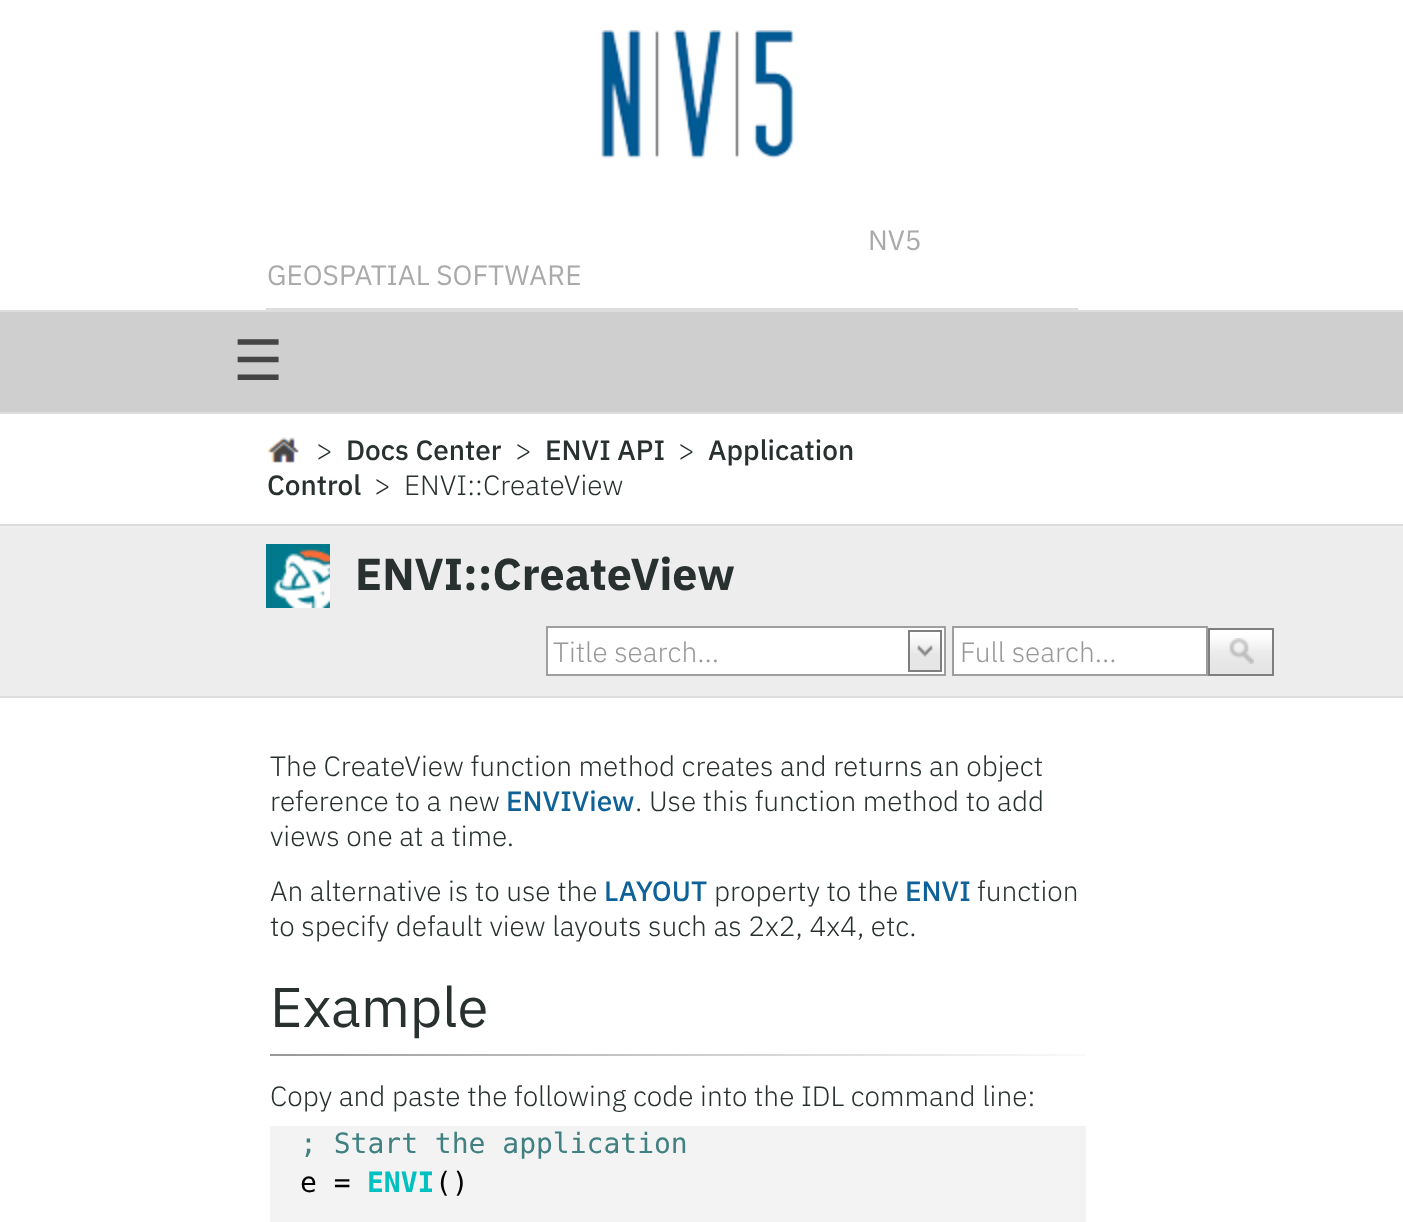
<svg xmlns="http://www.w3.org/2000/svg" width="1403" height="1222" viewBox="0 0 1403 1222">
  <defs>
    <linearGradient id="g1" gradientUnits="userSpaceOnUse" x1="270" y1="1055" x2="1086" y2="1055"><stop offset="0" stop-color="rgb(153,153,153)"/><stop offset="0.5" stop-color="rgb(204,204,204)"/><stop offset="1" stop-color="rgb(250,250,250)"/></linearGradient>
  </defs>
  <rect width="100%" height="100%" fill="rgb(255,255,255)"/>
  <image x="601" y="30" width="194" height="129" href="pic1.png"/>
  <g font-family="IBM Plex Sans" font-size="28" fill="rgb(170,170,170)">
    <text x="868" y="250">NV5</text>
    <text x="267" y="285">GEOSPATIAL SOFTWARE</text>
  </g>
  <rect x="266" y="308" width="812" height="2" fill="rgb(221,221,221)"/>
  <rect x="0" y="310" width="1403" height="2" fill="rgb(221,221,221)"/>
  <rect x="0" y="524" width="1403" height="2" fill="rgb(221,221,221)"/>
  <rect x="0" y="412" width="1403" height="2" fill="rgb(221,221,221)"/>
  <rect x="0" y="312" width="1403" height="100" fill="rgb(207,207,207)"/>
  <text x="233" y="380" font-family="DejaVu Sans" font-size="56" fill="rgb(68,68,68)">☰</text>
  <image x="267" y="437" width="32" height="26" href="pic2.png"/>
  <text x="316" y="460" font-family="IBM Plex Sans" font-size="28" font-weight="300" fill="rgb(40,48,48)">&gt;</text>
  <text x="346" y="460" font-family="IBM Plex Sans" font-size="28" font-weight="500" fill="rgb(40,48,48)">Docs Center</text>
  <text x="515" y="460" font-family="IBM Plex Sans" font-size="28" font-weight="300" fill="rgb(40,48,48)">&gt;</text>
  <text x="545" y="460" font-family="IBM Plex Sans" font-size="28" font-weight="500" fill="rgb(40,48,48)">ENVI API</text>
  <text x="678" y="460" font-family="IBM Plex Sans" font-size="28" font-weight="300" fill="rgb(40,48,48)">&gt;</text>
  <g font-family="IBM Plex Sans" font-size="28" font-weight="500" fill="rgb(40,48,48)">
    <text x="708" y="460">Application</text>
    <text x="267" y="495">Control</text>
  </g>
  <text x="374" y="495" font-family="IBM Plex Sans" font-size="28" font-weight="300" fill="rgb(40,48,48)" xml:space="preserve">&gt;  ENVI::CreateView</text>
  <rect x="0" y="526" width="1403" height="170" fill="rgb(237,237,237)"/>
  <rect x="0" y="696" width="1403" height="2" fill="rgb(221,221,221)"/>
  <image x="266" y="544" width="64" height="64" href="pic3.png"/>
  <text x="355" y="590" font-family="IBM Plex Sans" font-size="44.75" font-weight="bold" fill="rgb(40,48,48)">ENVI::CreateView</text>
  <rect x="547" y="627" width="398" height="48" fill="rgb(255,255,255)" stroke="rgb(159,159,159)" stroke-width="2"/>
  <text x="553" y="662" font-family="IBM Plex Sans" font-size="28" font-weight="300" fill="rgb(153,153,153)">Title search...</text>
  <rect x="910" y="653" width="30" height="17" fill="rgb(230,230,230)"/>
  <image x="910" y="632" width="30" height="21" href="pic4.png"/>
  <rect x="909" y="631" width="32" height="40" fill="none" stroke="rgb(127,127,127)" stroke-width="2"/>
  <image x="917" y="645" width="16" height="12" href="pic5.png"/>
  <rect x="953" y="627" width="254" height="48" fill="rgb(255,255,255)" stroke="rgb(159,159,159)" stroke-width="2"/>
  <text x="960" y="662" font-family="IBM Plex Sans" font-size="28" font-weight="300" fill="rgb(153,153,153)">Full search...</text>
  <image x="1210" y="630" width="62" height="44" href="pic6.png"/>
  <rect x="1209" y="629" width="64" height="46" fill="none" stroke="rgb(127,127,127)" stroke-width="2"/>
  <image x="1229" y="638" width="25" height="26" href="pic7.png"/>
  <g font-family="IBM Plex Sans" font-size="28" font-weight="300" fill="rgb(40,48,48)">
    <text>
      <tspan x="270" y="776">The CreateView function method creates and returns an object</tspan>
      <tspan x="270" y="811">reference to a new</tspan>
    </text>
  </g>
  <text x="506" y="811" font-family="IBM Plex Sans" font-size="28" font-weight="500" fill="rgb(15,98,152)">ENVIView</text>
  <g font-family="IBM Plex Sans" font-size="28" font-weight="300" fill="rgb(40,48,48)">
    <text x="635" y="811">. Use this function method to add</text>
    <text>
      <tspan x="270" y="846">views one at a time.</tspan>
      <tspan x="270" y="901">An alternative is to use the</tspan>
    </text>
  </g>
  <text x="604" y="901" font-family="IBM Plex Sans" font-size="28" font-weight="500" fill="rgb(15,98,152)">LAYOUT</text>
  <text x="714" y="901" font-family="IBM Plex Sans" font-size="28" font-weight="300" fill="rgb(40,48,48)">property to the</text>
  <text x="905" y="901" font-family="IBM Plex Sans" font-size="28" font-weight="500" fill="rgb(15,98,152)">ENVI</text>
  <g font-family="IBM Plex Sans" font-size="28" font-weight="300" fill="rgb(40,48,48)">
    <text x="977" y="901">function</text>
    <text x="270" y="936">to specify default view layouts such as 2x2, 4x4, etc.</text>
  </g>
  <text x="270" y="1027" font-family="IBM Plex Sans" font-size="56" fill="rgb(40,48,48)">Example</text>
  <rect x="270" y="1054" width="816" height="2" fill="url(#g1)"/>
  <text x="270" y="1106" font-family="IBM Plex Sans" font-size="28" font-weight="300" fill="rgb(40,48,48)">Copy and paste the following code into the IDL command line:</text>
  <rect x="270" y="1126" width="816" height="96" fill="rgb(243,243,243)"/>
  <text x="300" y="1153" font-family="DejaVu Sans Mono" font-size="28" fill="rgb(64,128,128)">; Start the application</text>
  <text x="300" y="1192" font-family="DejaVu Sans Mono" font-size="28" fill="rgb(0,0,0)">e =</text>
  <text x="367" y="1192" font-family="DejaVu Sans Mono" font-size="28" font-weight="bold" fill="rgb(0,192,192)">ENVI</text>
  <text x="435" y="1192" font-family="DejaVu Sans Mono" font-size="28" fill="rgb(0,0,0)">()</text>
</svg>
